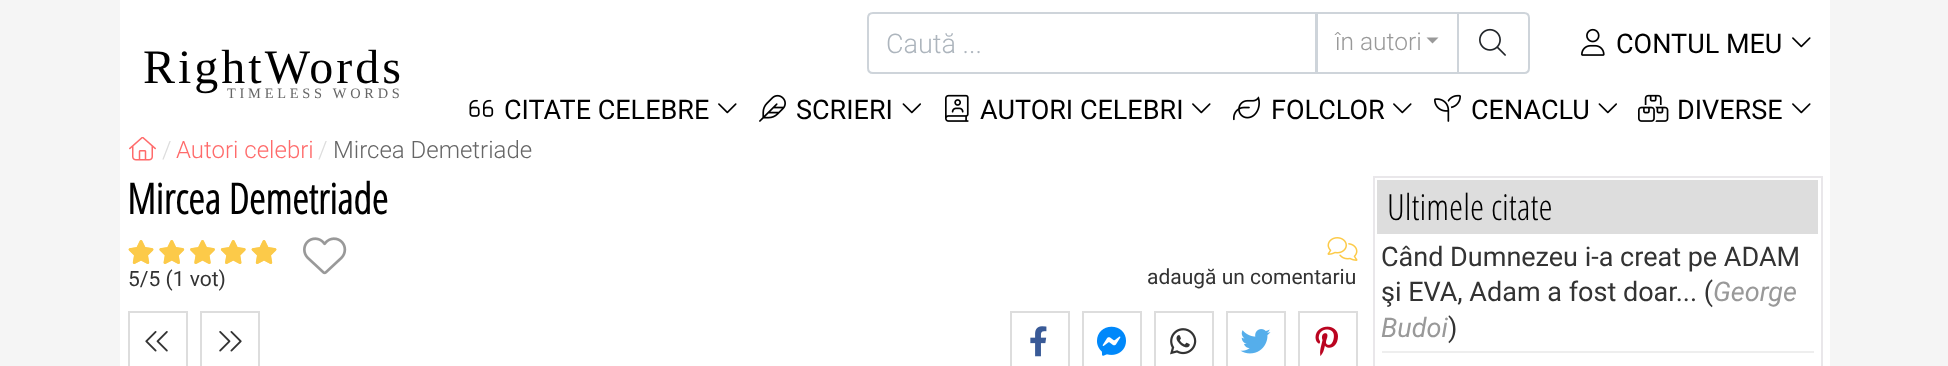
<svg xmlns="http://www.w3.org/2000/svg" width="1948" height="366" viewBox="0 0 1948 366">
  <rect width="100%" height="100%" fill="rgb(245,245,245)"/>
  <rect x="120" y="0" width="1710" height="366" fill="rgb(255,255,255)"/>
  <text x="143" y="83" font-family="Liberation Serif" font-size="48" letter-spacing="3" fill="rgb(0,0,0)">RightWords</text>
  <text x="227" y="98" font-family="Liberation Serif" font-size="14.4" letter-spacing="3.75" fill="rgb(102,102,102)">TIMELESS WORDS</text>
  <path d="M873 13H1316V73H873C870 73 868 71 868 68V18C868 15 870 13 873 13Z" fill="none" stroke="rgb(206,212,218)" stroke-width="2"/>
  <text x="886" y="53" font-family="Roboto" font-size="27" font-weight="300" fill="rgb(173,181,189)">Caută ...</text>
  <rect x="1316" y="12" width="141" height="2" fill="rgb(206,212,218)"/>
  <rect x="1316" y="72" width="141" height="2" fill="rgb(206,212,218)"/>
  <rect x="1317" y="12" width="1" height="62" fill="rgb(206,212,218)"/>
  <text x="1335" y="50" font-family="Roboto" font-size="24.5" font-weight="300" fill="rgb(153,153,153)">în autori</text>
  <path d="M1426.5 37.5H1438.5L1432.5 43.5Z" fill="rgb(153,153,153)"/>
  <path d="M1458 13H1524C1527 13 1529 15 1529 18V68C1529 71 1527 73 1524 73H1458Z" fill="none" stroke="rgb(206,212,218)" stroke-width="2"/>
  <image x="1479" y="28" width="27" height="28" href="pic1.png"/>
  <image x="1581" y="28" width="24" height="28" href="pic2.png"/>
  <text x="1616" y="53" font-family="Roboto" font-size="27" fill="rgb(0,0,0)">CONTUL MEU</text>
  <image x="1792" y="37" width="19" height="11" href="pic3.png"/>
  <image x="469" y="99" width="25" height="18" href="pic4.png"/>
  <text x="504" y="119" font-family="Roboto" font-size="27" fill="rgb(0,0,0)">CITATE CELEBRE</text>
  <image x="718" y="103" width="19" height="11" href="pic3.png"/>
  <image x="759" y="94" width="27" height="28" href="pic5.png"/>
  <text x="796" y="119" font-family="Roboto" font-size="27" fill="rgb(0,0,0)">SCRIERI</text>
  <image x="902" y="103" width="19" height="11" href="pic6.png"/>
  <image x="945" y="94" width="24" height="28" href="pic7.png"/>
  <text x="980" y="119" font-family="Roboto" font-size="27" fill="rgb(0,0,0)">AUTORI CELEBRI</text>
  <image x="1192" y="103" width="19" height="11" href="pic3.png"/>
  <image x="1233" y="96" width="27" height="25" href="pic8.png"/>
  <text x="1271" y="119" font-family="Roboto" font-size="27" fill="rgb(0,0,0)">FOLCLOR</text>
  <image x="1393" y="103" width="19" height="11" href="pic3.png"/>
  <image x="1434" y="94" width="27" height="28" href="pic9.png"/>
  <text x="1471" y="119" font-family="Roboto" font-size="27" fill="rgb(0,0,0)">CENACLU</text>
  <image x="1598" y="103" width="19" height="11" href="pic6.png"/>
  <image x="1638" y="94" width="31" height="28" href="pic10.png"/>
  <text x="1677" y="119" font-family="Roboto" font-size="27" fill="rgb(0,0,0)">DIVERSE</text>
  <image x="1792" y="103" width="19" height="11" href="pic3.png"/>
  <image x="129" y="137" width="27" height="24" href="pic11.png"/>
  <text x="162" y="158" font-family="Roboto" font-size="24" font-weight="300" fill="rgb(221,221,221)">/</text>
  <text x="176" y="158" font-family="Roboto" font-size="24" font-weight="300" fill="rgb(255,107,107)">Autori celebri</text>
  <text x="318" y="158" font-family="Roboto" font-size="24" font-weight="300" fill="rgb(221,221,221)">/</text>
  <text x="333" y="158" font-family="Roboto" font-size="24" font-weight="300" fill="rgb(102,102,102)">Mircea Demetriade</text>
  <text x="127" y="214" font-family="Open Sans Condensed" font-size="42" font-weight="bold" fill="rgb(0,0,0)">Mircea Demetriade</text>
  <image x="303" y="237" width="44" height="38" href="pic12.png"/>
  <image x="128" y="240" width="149" height="24" href="pic13.png"/>
  <image x="128" y="240" width="149" height="24" href="pic14.png"/>
  <text x="128" y="286" font-family="Roboto" font-size="21" fill="rgb(51,51,51)">5/5 (1 vot)</text>
  <image x="1327" y="237" width="31" height="24" href="pic15.png"/>
  <text x="1147" y="284" font-family="Roboto" font-size="21" fill="rgb(51,51,51)">adaugă un comentariu</text>
  <rect x="129" y="312" width="58" height="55" fill="none" stroke="rgb(221,221,221)" stroke-width="2"/>
  <image x="145" y="331" width="23" height="21" href="pic16.png"/>
  <rect x="201" y="312" width="58" height="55" fill="none" stroke="rgb(221,221,221)" stroke-width="2"/>
  <image x="219" y="331" width="23" height="21" href="pic17.png"/>
  <rect x="1011" y="312" width="58" height="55" fill="none" stroke="rgb(221,221,221)" stroke-width="2"/>
  <image x="1030" y="326" width="17" height="31" href="pic18.png"/>
  <rect x="1083" y="312" width="58" height="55" fill="none" stroke="rgb(221,221,221)" stroke-width="2"/>
  <image x="1097" y="326" width="29" height="30" href="pic19.png"/>
  <rect x="1155" y="312" width="58" height="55" fill="none" stroke="rgb(221,221,221)" stroke-width="2"/>
  <image x="1170" y="328" width="27" height="27" href="pic20.png"/>
  <rect x="1227" y="312" width="58" height="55" fill="none" stroke="rgb(221,221,221)" stroke-width="2"/>
  <image x="1240" y="329" width="31" height="25" href="pic21.png"/>
  <rect x="1299" y="312" width="58" height="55" fill="none" stroke="rgb(221,221,221)" stroke-width="2"/>
  <image x="1315" y="326" width="23" height="30" href="pic22.png"/>
  <rect x="1374" y="177" width="448" height="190" fill="none" stroke="rgb(233,231,234)" stroke-width="2"/>
  <rect x="1377" y="180" width="441" height="54" fill="rgb(221,221,221)"/>
  <text x="1387" y="220" font-family="Open Sans Condensed" font-size="36" font-weight="300" fill="rgb(0,0,0)">Ultimele citate</text>
  <rect x="1382" y="351" width="432" height="2" fill="rgb(238,238,238)"/>
  <g font-family="Roboto" font-size="27" fill="rgb(51,51,51)">
    <text>
      <tspan x="1381" y="266">Când Dumnezeu i-a creat pe ADAM</tspan>
      <tspan x="1381" y="301">şi EVA, Adam a fost doar... (</tspan>
    </text>
  </g>
  <g font-family="Roboto" font-size="27" font-style="italic" fill="rgb(153,153,153)">
    <text x="1713" y="301">George</text>
    <text x="1381" y="337">Budoi</text>
  </g>
  <text x="1448" y="337" font-family="Roboto" font-size="27" fill="rgb(51,51,51)">)</text>
</svg>
